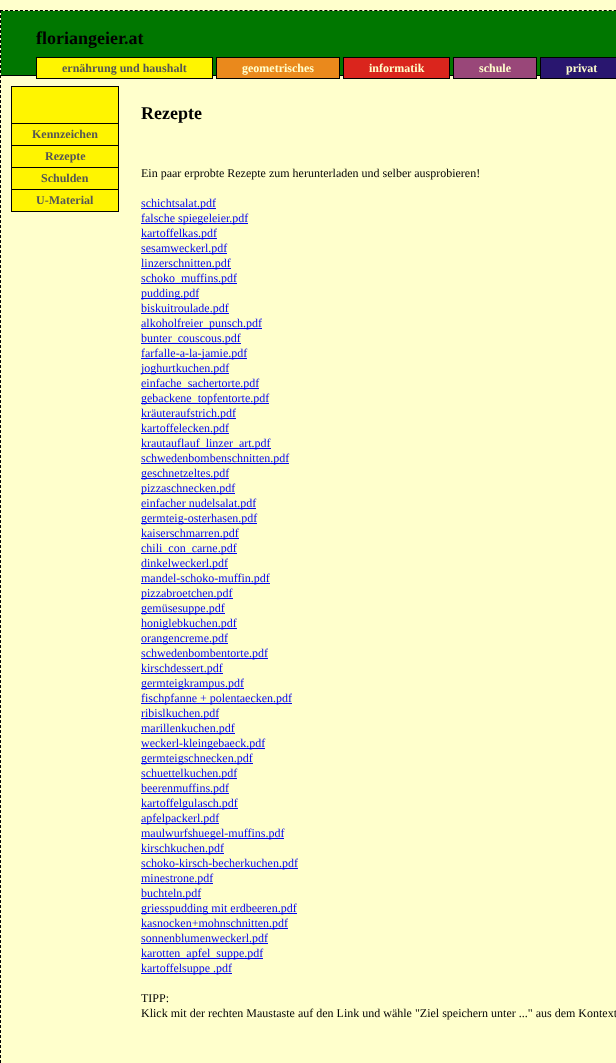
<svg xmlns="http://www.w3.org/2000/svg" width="616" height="1063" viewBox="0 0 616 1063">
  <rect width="100%" height="100%" fill="rgb(255,255,204)"/>
  <path d="M0 10.5H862" fill="none" stroke="rgb(0,0,0)" stroke-dasharray="3 1.99"/>
  <path d="M.5 10V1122" fill="none" stroke="rgb(0,0,0)" stroke-dasharray="3 2"/>
  <rect x="1" y="11" width="615" height="64" fill="rgb(0,119,0)"/>
  <rect x="1" y="75" width="539" height="1" fill="rgb(0,0,0)"/>
  <g font-family="Liberation Serif" font-size="18" font-weight="bold" fill="rgb(0,0,0)">
    <text x="36" y="44">floriangeier</text>
    <text x="124" y="44">.at</text>
  </g>
  <rect x="36.5" y="57.5" width="176" height="21" fill="rgb(255,245,0)" stroke="rgb(0,0,0)"/>
  <text x="62" y="72" font-family="Liberation Serif" font-size="12" font-weight="bold" fill="rgb(85,85,85)">ernährung und haushalt</text>
  <rect x="216.5" y="57.5" width="123" height="21" fill="rgb(234,137,28)" stroke="rgb(0,0,0)"/>
  <text x="242" y="72" font-family="Liberation Serif" font-size="12" font-weight="bold" fill="rgb(255,255,204)">geometrisches</text>
  <rect x="343.5" y="57.5" width="106" height="21" fill="rgb(218,37,29)" stroke="rgb(0,0,0)"/>
  <text x="369" y="72" font-family="Liberation Serif" font-size="12" font-weight="bold" fill="rgb(255,255,204)">informatik</text>
  <rect x="453.5" y="57.5" width="83" height="21" fill="rgb(153,71,121)" stroke="rgb(0,0,0)"/>
  <text x="479" y="72" font-family="Liberation Serif" font-size="12" font-weight="bold" fill="rgb(255,255,204)">schule</text>
  <rect x="540.5" y="57.5" width="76" height="21" fill="rgb(41,22,111)" stroke="rgb(0,0,0)"/>
  <text x="566" y="72" font-family="Liberation Serif" font-size="12" font-weight="bold" fill="rgb(255,255,204)">privat</text>
  <rect x="11.5" y="86.5" width="107" height="125" fill="rgb(255,245,0)" stroke="rgb(0,0,0)"/>
  <rect x="12" y="123" width="106" height="1" fill="rgb(0,0,0)"/>
  <text x="32" y="138" font-family="Liberation Serif" font-size="12" font-weight="bold" fill="rgb(85,85,85)">Kennzeichen</text>
  <rect x="12" y="145" width="106" height="1" fill="rgb(0,0,0)"/>
  <text x="45" y="160" font-family="Liberation Serif" font-size="12" font-weight="bold" fill="rgb(85,85,85)">Rezepte</text>
  <rect x="12" y="167" width="106" height="1" fill="rgb(0,0,0)"/>
  <text x="41" y="182" font-family="Liberation Serif" font-size="12" font-weight="bold" fill="rgb(85,85,85)">Schulden</text>
  <rect x="12" y="189" width="106" height="1" fill="rgb(0,0,0)"/>
  <text x="36" y="204" font-family="Liberation Serif" font-size="12" font-weight="bold" fill="rgb(85,85,85)">U-Material</text>
  <text x="141" y="119" font-family="Liberation Serif" font-size="18" font-weight="bold" fill="rgb(0,0,0)">Rezepte</text>
  <text x="141" y="177" font-family="Liberation Serif" font-size="12" fill="rgb(0,0,0)">Ein paar erprobte Rezepte zum herunterladen und selber ausprobieren!</text>
  <rect x="141" y="208" width="75" height="1" fill="rgb(0,0,238)"/>
  <text x="141" y="207" font-family="Liberation Serif" font-size="12" fill="rgb(0,0,238)">schichtsalat.pdf</text>
  <rect x="141" y="223" width="107" height="1" fill="rgb(0,0,238)"/>
  <text x="141" y="222" font-family="Liberation Serif" font-size="12" fill="rgb(0,0,238)">falsche spiegeleier.pdf</text>
  <rect x="141" y="238" width="76" height="1" fill="rgb(0,0,238)"/>
  <text x="141" y="237" font-family="Liberation Serif" font-size="12" fill="rgb(0,0,238)">kartoffelkas.pdf</text>
  <rect x="141" y="253" width="86" height="1" fill="rgb(0,0,238)"/>
  <text x="141" y="252" font-family="Liberation Serif" font-size="12" fill="rgb(0,0,238)">sesamweckerl.pdf</text>
  <rect x="141" y="268" width="90" height="1" fill="rgb(0,0,238)"/>
  <text x="141" y="267" font-family="Liberation Serif" font-size="12" fill="rgb(0,0,238)">linzerschnitten.pdf</text>
  <rect x="141" y="283" width="96" height="1" fill="rgb(0,0,238)"/>
  <text x="141" y="282" font-family="Liberation Serif" font-size="12" fill="rgb(0,0,238)">schoko_muffins.pdf</text>
  <rect x="141" y="298" width="58" height="1" fill="rgb(0,0,238)"/>
  <text x="141" y="297" font-family="Liberation Serif" font-size="12" fill="rgb(0,0,238)">pudding.pdf</text>
  <rect x="141" y="313" width="88" height="1" fill="rgb(0,0,238)"/>
  <text x="141" y="312" font-family="Liberation Serif" font-size="12" fill="rgb(0,0,238)">biskuitroulade.pdf</text>
  <rect x="141" y="328" width="121" height="1" fill="rgb(0,0,238)"/>
  <text x="141" y="327" font-family="Liberation Serif" font-size="12" fill="rgb(0,0,238)">alkoholfreier_punsch.pdf</text>
  <rect x="141" y="343" width="100" height="1" fill="rgb(0,0,238)"/>
  <text x="141" y="342" font-family="Liberation Serif" font-size="12" fill="rgb(0,0,238)">bunter_couscous.pdf</text>
  <rect x="141" y="358" width="106" height="1" fill="rgb(0,0,238)"/>
  <text x="141" y="357" font-family="Liberation Serif" font-size="12" fill="rgb(0,0,238)">farfalle-a-la-jamie.pdf</text>
  <rect x="141" y="373" width="88" height="1" fill="rgb(0,0,238)"/>
  <text x="141" y="372" font-family="Liberation Serif" font-size="12" fill="rgb(0,0,238)">joghurtkuchen.pdf</text>
  <rect x="141" y="388" width="118" height="1" fill="rgb(0,0,238)"/>
  <text x="141" y="387" font-family="Liberation Serif" font-size="12" fill="rgb(0,0,238)">einfache_sachertorte.pdf</text>
  <rect x="141" y="403" width="128" height="1" fill="rgb(0,0,238)"/>
  <text x="141" y="402" font-family="Liberation Serif" font-size="12" fill="rgb(0,0,238)">gebackene_topfentorte.pdf</text>
  <rect x="141" y="418" width="95" height="1" fill="rgb(0,0,238)"/>
  <text x="141" y="417" font-family="Liberation Serif" font-size="12" fill="rgb(0,0,238)">kräuteraufstrich.pdf</text>
  <rect x="141" y="433" width="88" height="1" fill="rgb(0,0,238)"/>
  <text x="141" y="432" font-family="Liberation Serif" font-size="12" fill="rgb(0,0,238)">kartoffelecken.pdf</text>
  <rect x="141" y="448" width="130" height="1" fill="rgb(0,0,238)"/>
  <text x="141" y="447" font-family="Liberation Serif" font-size="12" fill="rgb(0,0,238)">krautauflauf_linzer_art.pdf</text>
  <rect x="141" y="463" width="148" height="1" fill="rgb(0,0,238)"/>
  <text x="141" y="462" font-family="Liberation Serif" font-size="12" fill="rgb(0,0,238)">schwedenbombenschnitten.pdf</text>
  <rect x="141" y="478" width="88" height="1" fill="rgb(0,0,238)"/>
  <text x="141" y="477" font-family="Liberation Serif" font-size="12" fill="rgb(0,0,238)">geschnetzeltes.pdf</text>
  <rect x="141" y="493" width="94" height="1" fill="rgb(0,0,238)"/>
  <text x="141" y="492" font-family="Liberation Serif" font-size="12" fill="rgb(0,0,238)">pizzaschnecken.pdf</text>
  <rect x="141" y="508" width="115" height="1" fill="rgb(0,0,238)"/>
  <text x="141" y="507" font-family="Liberation Serif" font-size="12" fill="rgb(0,0,238)">einfacher nudelsalat.pdf</text>
  <rect x="141" y="523" width="116" height="1" fill="rgb(0,0,238)"/>
  <text x="141" y="522" font-family="Liberation Serif" font-size="12" fill="rgb(0,0,238)">germteig-osterhasen.pdf</text>
  <rect x="141" y="538" width="98" height="1" fill="rgb(0,0,238)"/>
  <text x="141" y="537" font-family="Liberation Serif" font-size="12" fill="rgb(0,0,238)">kaiserschmarren.pdf</text>
  <rect x="141" y="553" width="96" height="1" fill="rgb(0,0,238)"/>
  <text x="141" y="552" font-family="Liberation Serif" font-size="12" fill="rgb(0,0,238)">chili_con_carne.pdf</text>
  <rect x="141" y="568" width="87" height="1" fill="rgb(0,0,238)"/>
  <text x="141" y="567" font-family="Liberation Serif" font-size="12" fill="rgb(0,0,238)">dinkelweckerl.pdf</text>
  <rect x="141" y="583" width="129" height="1" fill="rgb(0,0,238)"/>
  <text x="141" y="582" font-family="Liberation Serif" font-size="12" fill="rgb(0,0,238)">mandel-schoko-muffin.pdf</text>
  <rect x="141" y="598" width="92" height="1" fill="rgb(0,0,238)"/>
  <text x="141" y="597" font-family="Liberation Serif" font-size="12" fill="rgb(0,0,238)">pizzabroetchen.pdf</text>
  <rect x="141" y="613" width="84" height="1" fill="rgb(0,0,238)"/>
  <text x="141" y="612" font-family="Liberation Serif" font-size="12" fill="rgb(0,0,238)">gemüsesuppe.pdf</text>
  <rect x="141" y="628" width="96" height="1" fill="rgb(0,0,238)"/>
  <text x="141" y="627" font-family="Liberation Serif" font-size="12" fill="rgb(0,0,238)">honiglebkuchen.pdf</text>
  <rect x="141" y="643" width="87" height="1" fill="rgb(0,0,238)"/>
  <text x="141" y="642" font-family="Liberation Serif" font-size="12" fill="rgb(0,0,238)">orangencreme.pdf</text>
  <rect x="141" y="658" width="127" height="1" fill="rgb(0,0,238)"/>
  <text x="141" y="657" font-family="Liberation Serif" font-size="12" fill="rgb(0,0,238)">schwedenbombentorte.pdf</text>
  <rect x="141" y="673" width="82" height="1" fill="rgb(0,0,238)"/>
  <text x="141" y="672" font-family="Liberation Serif" font-size="12" fill="rgb(0,0,238)">kirschdessert.pdf</text>
  <rect x="141" y="688" width="103" height="1" fill="rgb(0,0,238)"/>
  <text x="141" y="687" font-family="Liberation Serif" font-size="12" fill="rgb(0,0,238)">germteigkrampus.pdf</text>
  <rect x="141" y="703" width="151" height="1" fill="rgb(0,0,238)"/>
  <text x="141" y="702" font-family="Liberation Serif" font-size="12" fill="rgb(0,0,238)">fischpfanne + polentaecken.pdf</text>
  <rect x="141" y="718" width="78" height="1" fill="rgb(0,0,238)"/>
  <text x="141" y="717" font-family="Liberation Serif" font-size="12" fill="rgb(0,0,238)">ribislkuchen.pdf</text>
  <rect x="141" y="733" width="94" height="1" fill="rgb(0,0,238)"/>
  <text x="141" y="732" font-family="Liberation Serif" font-size="12" fill="rgb(0,0,238)">marillenkuchen.pdf</text>
  <rect x="141" y="748" width="124" height="1" fill="rgb(0,0,238)"/>
  <text x="141" y="747" font-family="Liberation Serif" font-size="12" fill="rgb(0,0,238)">weckerl-kleingebaeck.pdf</text>
  <rect x="141" y="763" width="112" height="1" fill="rgb(0,0,238)"/>
  <text x="141" y="762" font-family="Liberation Serif" font-size="12" fill="rgb(0,0,238)">germteigschnecken.pdf</text>
  <rect x="141" y="778" width="96" height="1" fill="rgb(0,0,238)"/>
  <text x="141" y="777" font-family="Liberation Serif" font-size="12" fill="rgb(0,0,238)">schuettelkuchen.pdf</text>
  <rect x="141" y="793" width="88" height="1" fill="rgb(0,0,238)"/>
  <text x="141" y="792" font-family="Liberation Serif" font-size="12" fill="rgb(0,0,238)">beerenmuffins.pdf</text>
  <rect x="141" y="808" width="97" height="1" fill="rgb(0,0,238)"/>
  <text x="141" y="807" font-family="Liberation Serif" font-size="12" fill="rgb(0,0,238)">kartoffelgulasch.pdf</text>
  <rect x="141" y="823" width="78" height="1" fill="rgb(0,0,238)"/>
  <text x="141" y="822" font-family="Liberation Serif" font-size="12" fill="rgb(0,0,238)">apfelpackerl.pdf</text>
  <rect x="141" y="838" width="143" height="1" fill="rgb(0,0,238)"/>
  <text x="141" y="837" font-family="Liberation Serif" font-size="12" fill="rgb(0,0,238)">maulwurfshuegel-muffins.pdf</text>
  <rect x="141" y="853" width="83" height="1" fill="rgb(0,0,238)"/>
  <text x="141" y="852" font-family="Liberation Serif" font-size="12" fill="rgb(0,0,238)">kirschkuchen.pdf</text>
  <rect x="141" y="868" width="157" height="1" fill="rgb(0,0,238)"/>
  <text x="141" y="867" font-family="Liberation Serif" font-size="12" fill="rgb(0,0,238)">schoko-kirsch-becherkuchen.pdf</text>
  <rect x="141" y="883" width="72" height="1" fill="rgb(0,0,238)"/>
  <text x="141" y="882" font-family="Liberation Serif" font-size="12" fill="rgb(0,0,238)">minestrone.pdf</text>
  <rect x="141" y="898" width="60" height="1" fill="rgb(0,0,238)"/>
  <text x="141" y="897" font-family="Liberation Serif" font-size="12" fill="rgb(0,0,238)">buchteln.pdf</text>
  <rect x="141" y="913" width="156" height="1" fill="rgb(0,0,238)"/>
  <text x="141" y="912" font-family="Liberation Serif" font-size="12" fill="rgb(0,0,238)">griesspudding mit erdbeeren.pdf</text>
  <rect x="141" y="928" width="147" height="1" fill="rgb(0,0,238)"/>
  <text x="141" y="927" font-family="Liberation Serif" font-size="12" fill="rgb(0,0,238)">kasnocken+mohnschnitten.pdf</text>
  <rect x="141" y="943" width="127" height="1" fill="rgb(0,0,238)"/>
  <text x="141" y="942" font-family="Liberation Serif" font-size="12" fill="rgb(0,0,238)">sonnenblumenweckerl.pdf</text>
  <rect x="141" y="958" width="122" height="1" fill="rgb(0,0,238)"/>
  <text x="141" y="957" font-family="Liberation Serif" font-size="12" fill="rgb(0,0,238)">karotten_apfel_suppe.pdf</text>
  <rect x="141" y="973" width="91" height="1" fill="rgb(0,0,238)"/>
  <text x="141" y="972" font-family="Liberation Serif" font-size="12" fill="rgb(0,0,238)">kartoffelsuppe .pdf</text>
  <g font-family="Liberation Serif" font-size="12" fill="rgb(0,0,0)">
    <text>
      <tspan x="141" y="1002">TIPP:</tspan>
      <tspan x="141" y="1017">Klick mit der rechten Maustaste auf den Link und wähle "Ziel speichern unter ..." aus dem Kontext</tspan>
    </text>
  </g>
</svg>
